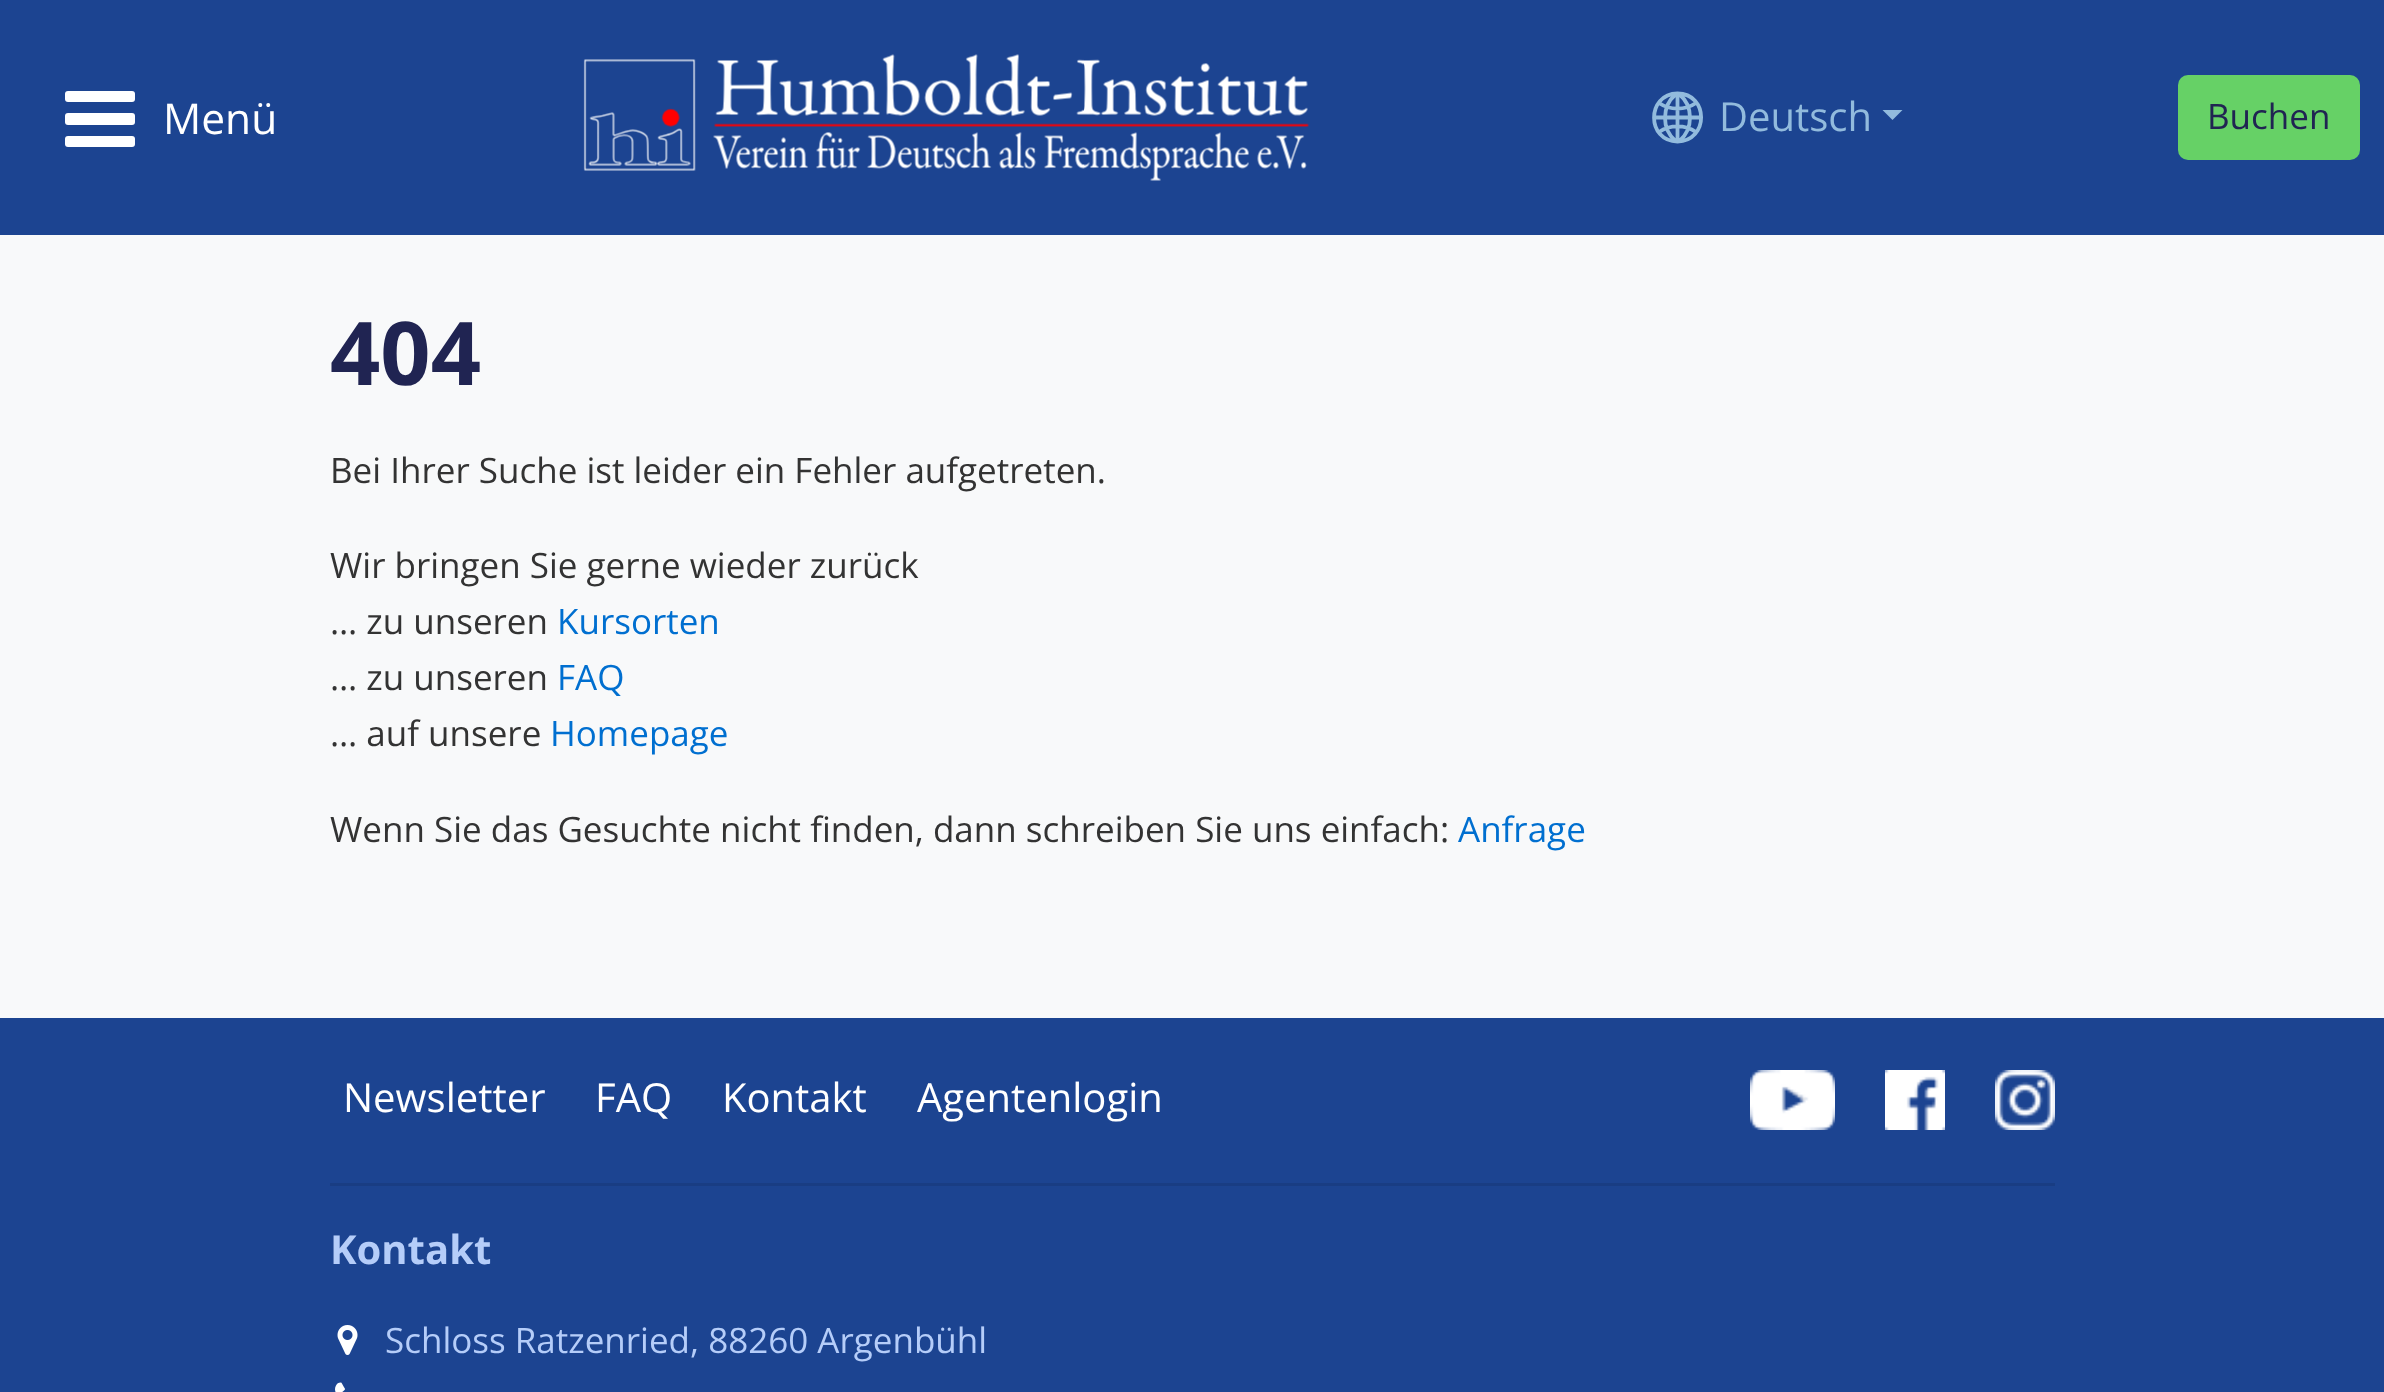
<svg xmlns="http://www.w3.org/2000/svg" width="2384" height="1392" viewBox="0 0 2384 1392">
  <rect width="100%" height="100%" fill="rgb(28,68,145)"/>
  <rect x="65" y="91" width="70" height="11" rx="3" fill="rgb(255,255,255)"/>
  <rect x="65" y="113" width="70" height="12" rx="3" fill="rgb(255,255,255)"/>
  <rect x="65" y="136" width="70" height="11" rx="3" fill="rgb(255,255,255)"/>
  <text x="163" y="134" font-family="Open Sans" font-size="42.5" fill="rgb(255,255,255)">Menü</text>
  <image x="583" y="54" width="726" height="127" href="pic1.png"/>
  <path d="M1677.5 93.5C1646 94 1646.5 141.5 1677.5 141.5C1709 141 1709 93.5 1677.5 93.5ZM1677.5 93.5V141.5M1701.5 117.5H1653.5M1659 103C1670 110.5 1685 110.5 1696 103M1696 132C1685 124.5 1670 124.5 1659 132M1675.5 94.5C1661.5 106.5 1661.5 129 1675.5 141M1679.5 141C1693.5 129 1693.5 106 1679.5 94.5" fill="none" stroke="rgb(146,187,221)" stroke-width="3.8"/>
  <text x="1719" y="131" font-family="Open Sans" font-size="40" fill="rgb(146,187,221)">Deutsch</text>
  <path d="M1882.5 110H1902.5L1892.5 120Z" fill="rgb(146,187,221)"/>
  <rect x="2178" y="75" width="182" height="85" rx="10" fill="rgb(102,209,102)"/>
  <text x="2207" y="129" font-family="Open Sans" font-size="35" fill="rgb(32,36,82)">Buchen</text>
  <rect x="0" y="235" width="2384" height="783" fill="rgb(248,249,250)"/>
  <text x="330" y="385" font-family="Open Sans" font-size="88" font-weight="bold" fill="rgb(32,36,82)">404</text>
  <g font-family="Open Sans" font-size="35" fill="rgb(51,51,51)">
    <text x="330" y="483">Bei Ihrer Suche ist leider ein Fehler aufgetreten.</text>
    <text>
      <tspan x="330" y="578">Wir bringen Sie gerne wieder zurück</tspan>
      <tspan x="330" y="634">… zu unseren</tspan>
    </text>
  </g>
  <text x="557" y="634" font-family="Open Sans" font-size="35" fill="rgb(0,111,208)">Kursorten</text>
  <text x="330" y="690" font-family="Open Sans" font-size="35" fill="rgb(51,51,51)">… zu unseren</text>
  <text x="557" y="690" font-family="Open Sans" font-size="35" fill="rgb(0,111,208)">FAQ</text>
  <text x="330" y="746" font-family="Open Sans" font-size="35" fill="rgb(51,51,51)">… auf unsere</text>
  <text x="550" y="746" font-family="Open Sans" font-size="35" fill="rgb(0,111,208)">Homepage</text>
  <text x="330" y="842" font-family="Open Sans" font-size="35" fill="rgb(51,51,51)">Wenn Sie das Gesuchte nicht finden, dann schreiben Sie uns einfach:</text>
  <text x="1458" y="842" font-family="Open Sans" font-size="35" fill="rgb(0,111,208)">Anfrage</text>
  <g font-family="Open Sans" font-size="40" fill="rgb(255,255,255)">
    <text x="343" y="1112">Newsletter</text>
    <text x="595" y="1112">FAQ</text>
    <text x="722" y="1112">Kontakt</text>
    <text x="917" y="1112">Agentenlogin</text>
  </g>
  <image x="1750" y="1070" width="85" height="60" href="pic2.png"/>
  <image x="1885" y="1070" width="60" height="60" href="pic3.png"/>
  <image x="1995" y="1070" width="60" height="60" href="pic4.png"/>
  <rect x="330" y="1183" width="1725" height="3" fill="rgb(25,61,131)"/>
  <text x="330" y="1264" font-family="Open Sans" font-size="40" font-weight="bold" fill="rgb(181,205,249)">Kontakt</text>
  <image x="337" y="1325" width="21" height="30" href="pic5.png"/>
  <text x="385" y="1353" font-family="Open Sans" font-size="35" fill="rgb(181,205,249)">Schloss Ratzenried, 88260 Argenbühl</text>
  <image x="335" y="1382" width="10" height="10" href="pic6.png"/>
</svg>
